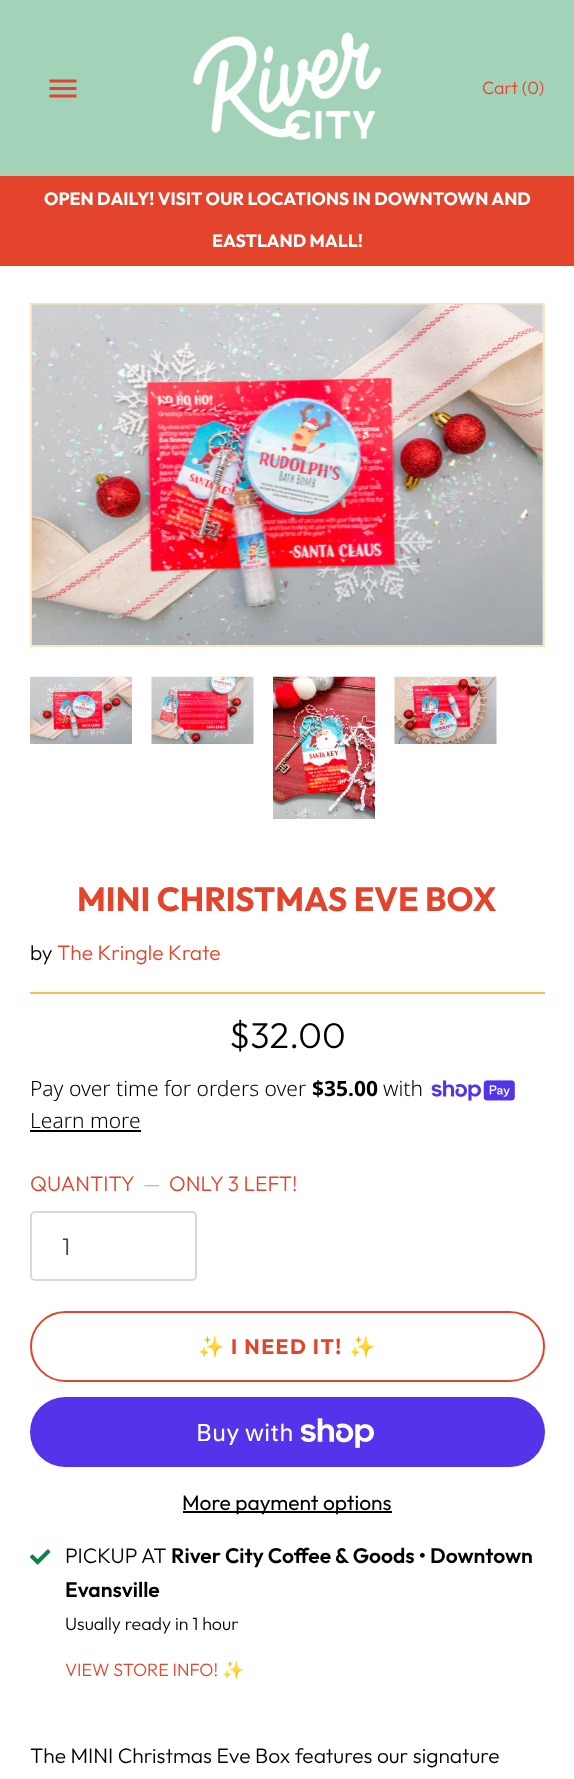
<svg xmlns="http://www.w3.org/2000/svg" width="574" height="1779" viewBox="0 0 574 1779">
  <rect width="100%" height="100%" fill="rgb(255,255,255)"/>
  <rect x="0" y="0" width="574" height="176" fill="rgb(162,210,184)"/>
  <image x="49" y="79" width="28" height="19" href="pic1.png"/>
  <image x="193" y="32" width="188" height="108" href="pic2.png"/>
  <text x="482" y="94" font-family="Outfit" font-size="17.85" font-weight="300" fill="rgb(227,68,43)">Cart (0)</text>
  <rect x="0" y="176" width="574" height="90" fill="rgb(227,68,43)"/>
  <g font-family="Outfit" font-size="17.85" font-weight="bold" fill="rgb(255,255,255)">
    <text x="44" y="205">OPEN DAILY! VISIT OUR LOCATIONS IN DOWNTOWN AND</text>
    <text x="212" y="247">EASTLAND MALL!</text>
  </g>
  <rect x="31" y="304" width="513" height="342" fill="none" stroke="rgb(251,230,188)" stroke-width="2"/>
  <image x="32" y="304" width="511" height="341" href="pic3.png"/>
  <image x="30" y="676" width="102" height="68" href="pic4.png"/>
  <image x="151" y="676" width="103" height="68" href="pic5.png"/>
  <image x="273" y="676" width="102" height="143" href="pic6.png"/>
  <image x="394" y="676" width="103" height="68" href="pic7.png"/>
  <text x="77" y="911" font-family="Outfit" font-size="33.6" font-weight="bold" fill="rgb(227,68,43)">MINI CHRISTMAS EVE BOX</text>
  <text x="30" y="960" font-family="Outfit" font-size="21" font-weight="300" fill="rgb(0,0,0)">by</text>
  <text x="57" y="960" font-family="Outfit" font-size="21" font-weight="300" fill="rgb(227,68,43)">The Kringle Krate</text>
  <rect x="30" y="992" width="515" height="2" fill="rgb(245,193,88)"/>
  <text x="229" y="1048" font-family="Outfit" font-size="36" font-weight="300" fill="rgb(0,0,0)">$32.00</text>
  <text x="30" y="1096" font-family="Noto Sans" font-size="21" font-weight="300" fill="rgb(0,0,0)">Pay over time for orders over</text>
  <text x="312" y="1096" font-family="Noto Sans" font-size="21" font-weight="bold" fill="rgb(0,0,0)">$35.00</text>
  <text x="383" y="1096" font-family="Noto Sans" font-size="21" font-weight="300" fill="rgb(0,0,0)">with</text>
  <image x="431" y="1080" width="84" height="21" href="pic8.png"/>
  <text x="30" y="1128" font-family="Noto Sans" font-size="21" font-weight="300" fill="rgb(0,0,0)">Learn more</text>
  <rect x="30" y="1130" width="111" height="2" fill="rgb(0,0,0)"/>
  <text x="30" y="1191" font-family="Outfit" font-size="21" font-weight="300" fill="rgb(227,68,43)">QUANTITY</text>
  <text x="143" y="1191" font-family="Outfit" font-size="21" font-weight="300" fill="rgb(241,162,149)">—</text>
  <text x="169" y="1191" font-family="Outfit" font-size="21" font-weight="300" fill="rgb(227,68,43)">ONLY 3 LEFT!</text>
  <rect x="31" y="1212" width="165" height="68" rx="4" fill="none" stroke="rgb(217,217,217)" stroke-width="2"/>
  <text x="62" y="1255" font-family="Outfit" font-size="24" font-weight="300" fill="rgb(68,68,68)">1</text>
  <rect x="31" y="1312" width="513" height="69" rx="34.5" fill="none" stroke="rgb(227,68,43)" stroke-width="2"/>
  <text x="198" y="1354" font-family="Noto Color Emoji" font-size="21" font-weight="bold" letter-spacing="1.5" fill="rgb(227,68,43)">✨</text>
  <text x="231" y="1354" font-family="Outfit" font-size="21" font-weight="bold" letter-spacing="1.5" fill="rgb(227,68,43)">I NEED IT!</text>
  <text x="349" y="1354" font-family="Noto Color Emoji" font-size="21" font-weight="bold" letter-spacing="1.5" fill="rgb(227,68,43)">✨</text>
  <rect x="30" y="1397" width="515" height="70" rx="35" fill="rgb(84,51,235)"/>
  <text x="196" y="1441" font-family="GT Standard" font-size="24" fill="rgb(255,255,255)">Buy with</text>
  <image x="300" y="1418" width="74" height="30" href="pic9.png"/>
  <rect x="183" y="1511" width="209" height="2" fill="rgb(0,0,0)"/>
  <text x="182" y="1510" font-family="Outfit" font-size="21" fill="rgb(0,0,0)">More payment options</text>
  <image x="30" y="1549" width="21" height="16" href="pic10.png"/>
  <text x="65" y="1563" font-family="Outfit" font-size="21" font-weight="300" fill="rgb(0,0,0)">PICKUP AT</text>
  <g font-family="Outfit" font-size="21" font-weight="600" fill="rgb(0,0,0)">
    <text x="171" y="1563">River City Coffee &amp; Goods • Downtown</text>
    <text x="65" y="1597">Evansville</text>
  </g>
  <text x="65" y="1630" font-family="Outfit" font-size="17.85" font-weight="300" fill="rgb(0,0,0)">Usually ready in 1 hour</text>
  <text x="65" y="1676" font-family="Outfit" font-size="17.85" font-weight="300" fill="rgb(227,68,43)">VIEW STORE INFO!</text>
  <text x="222" y="1676" font-family="Noto Color Emoji" font-size="17.85" fill="rgb(227,68,43)">✨</text>
  <text x="30" y="1763" font-family="Outfit" font-size="21" font-weight="300" fill="rgb(0,0,0)">The MINI Christmas Eve Box features our signature</text>
</svg>
